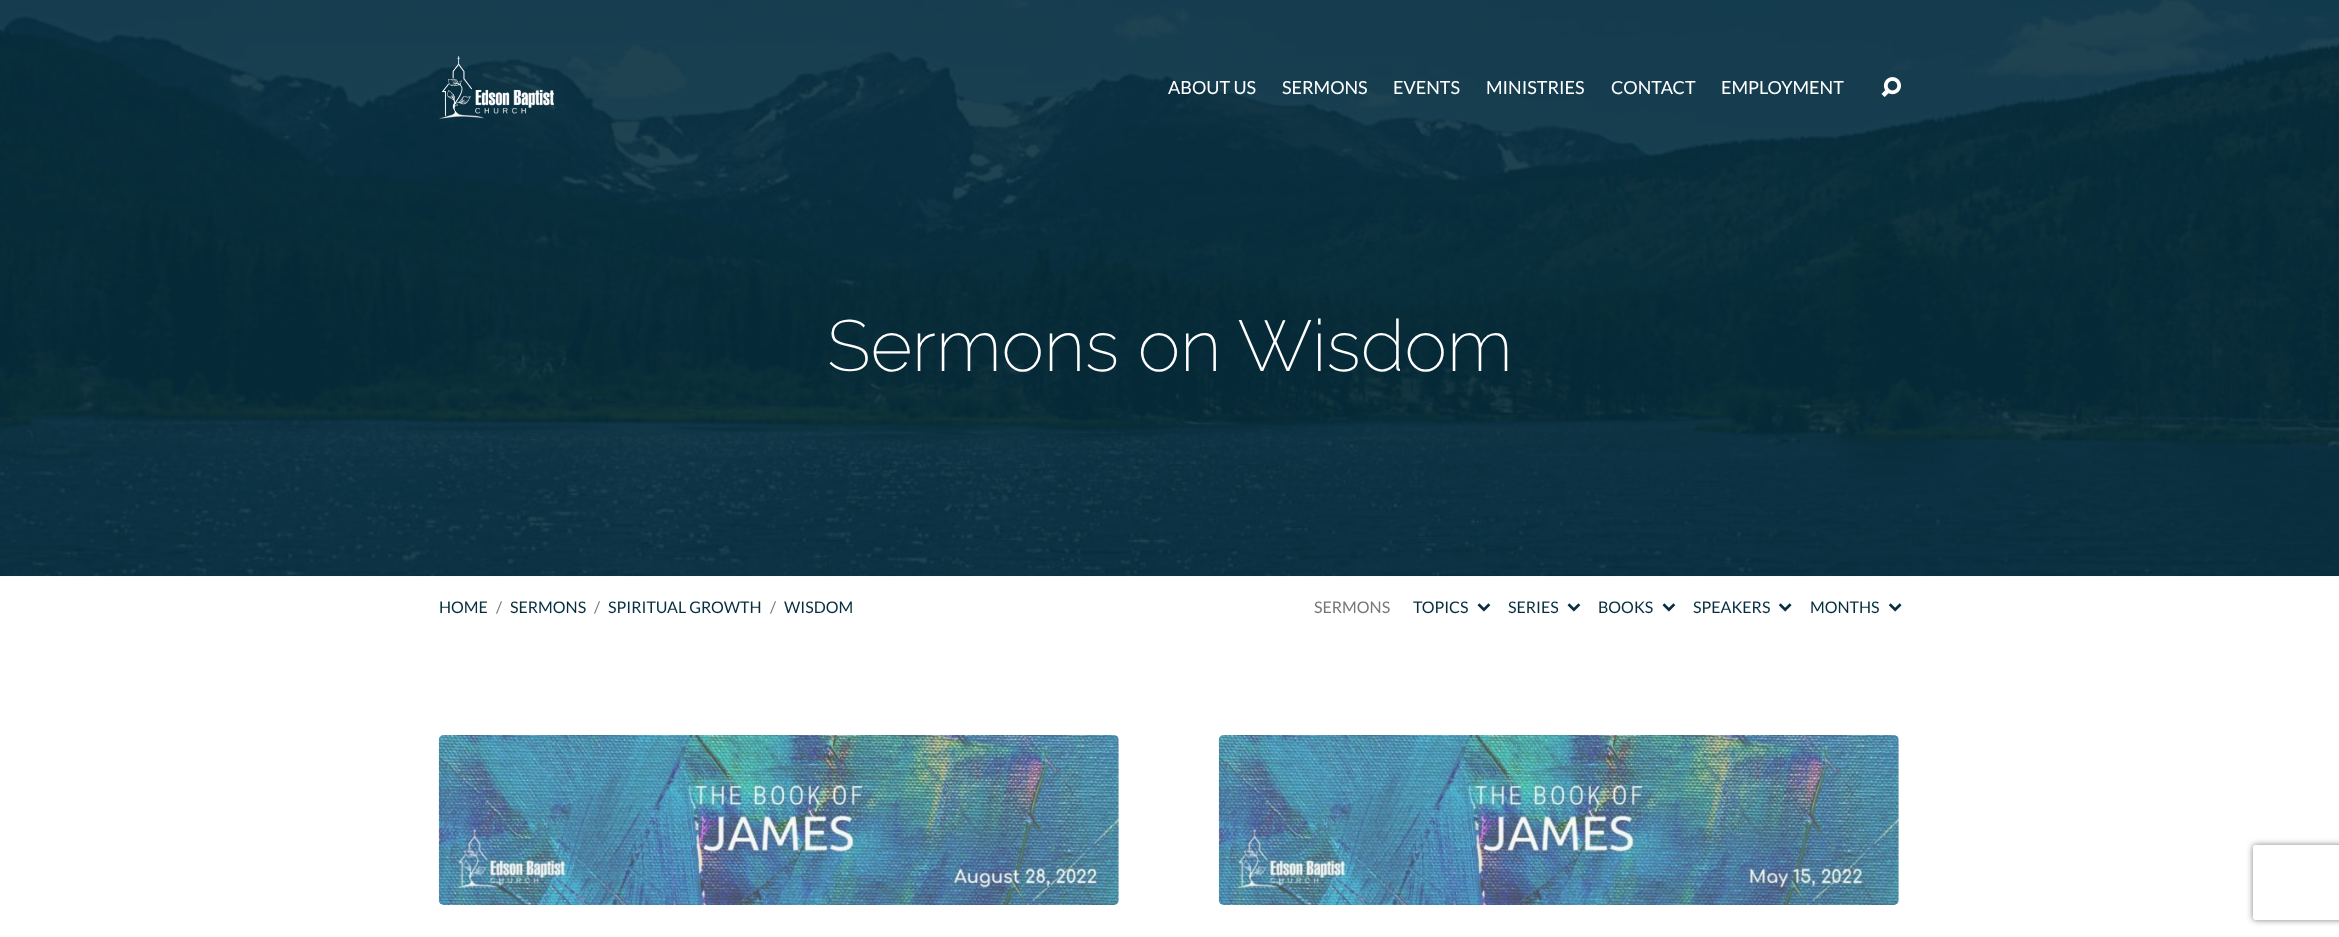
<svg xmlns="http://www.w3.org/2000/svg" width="2339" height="937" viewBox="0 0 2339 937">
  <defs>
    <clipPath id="clip1"><path d="M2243 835H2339V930H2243ZM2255.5 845H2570.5C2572 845 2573 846 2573 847.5V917.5C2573 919 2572 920 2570.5 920H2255.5C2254 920 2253 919 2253 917.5V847.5C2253 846 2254 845 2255.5 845Z" clip-rule="evenodd"/></clipPath>
  </defs>
  <rect width="100%" height="100%" fill="rgb(255,255,255)"/>
  <rect x="0" y="0" width="2339" height="576" fill="rgb(6,46,62)"/>
  <image x="0" y="0" width="2339" height="577" href="pic3.png"/>
  <image x="439" y="56" width="115" height="63" href="pic1.png"/>
  <g font-family="Lato" font-size="18" fill="rgb(255,255,255)">
    <text x="1168" y="94">ABOUT US</text>
    <text x="1282" y="94">SERMONS</text>
    <text x="1393" y="94">EVENTS</text>
    <text x="1486" y="94">MINISTRIES</text>
    <text x="1611" y="94">CONTACT</text>
    <text x="1721" y="94">EMPLOYMENT</text>
  </g>
  <image x="1881" y="77" width="20" height="20" href="pic2.png"/>
  <text x="827" y="371" font-family="Raleway" font-size="72" font-weight="200" fill="rgb(255,255,255)">Sermons on Wisdom</text>
  <text x="439" y="613" font-family="Lato" font-size="16" fill="rgb(6,46,62)">HOME</text>
  <text x="496" y="613" font-family="Lato" font-size="16" fill="rgb(119,119,119)">/</text>
  <text x="510" y="613" font-family="Lato" font-size="16" fill="rgb(6,46,62)">SERMONS</text>
  <text x="594" y="613" font-family="Lato" font-size="16" fill="rgb(119,119,119)">/</text>
  <text x="608" y="613" font-family="Lato" font-size="16" fill="rgb(6,46,62)">SPIRITUAL GROWTH</text>
  <text x="770" y="613" font-family="Lato" font-size="16" fill="rgb(119,119,119)">/</text>
  <text x="784" y="613" font-family="Lato" font-size="16" fill="rgb(6,46,62)">WISDOM</text>
  <text x="1314" y="613" font-family="Lato" font-size="16" fill="rgb(119,119,119)">SERMONS</text>
  <text x="1413" y="613" font-family="Lato" font-size="16" fill="rgb(6,46,62)">TOPICS</text>
  <image x="1477" y="603" width="14" height="9" href="pic4.png"/>
  <text x="1508" y="613" font-family="Lato" font-size="16" fill="rgb(6,46,62)">SERIES</text>
  <image x="1567" y="603" width="14" height="9" href="pic4.png"/>
  <text x="1598" y="613" font-family="Lato" font-size="16" fill="rgb(6,46,62)">BOOKS</text>
  <image x="1662" y="603" width="14" height="9" href="pic4.png"/>
  <text x="1693" y="613" font-family="Lato" font-size="16" fill="rgb(6,46,62)">SPEAKERS</text>
  <image x="1778" y="603" width="14" height="9" href="pic5.png"/>
  <text x="1810" y="613" font-family="Lato" font-size="16" fill="rgb(6,46,62)">MONTHS</text>
  <image x="1888" y="603" width="14" height="9" href="pic5.png"/>
  <image x="438" y="735" width="681" height="170" href="pic6.png"/>
  <image x="1218" y="735" width="681" height="170" href="pic7.png"/>
  <g clip-path="url(#clip1)">
    <rect x="2253" y="845" width="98" height="75" rx="2.5" fill="rgb(128,128,128)" filter="blur(3px)"/>
  </g>
</svg>
